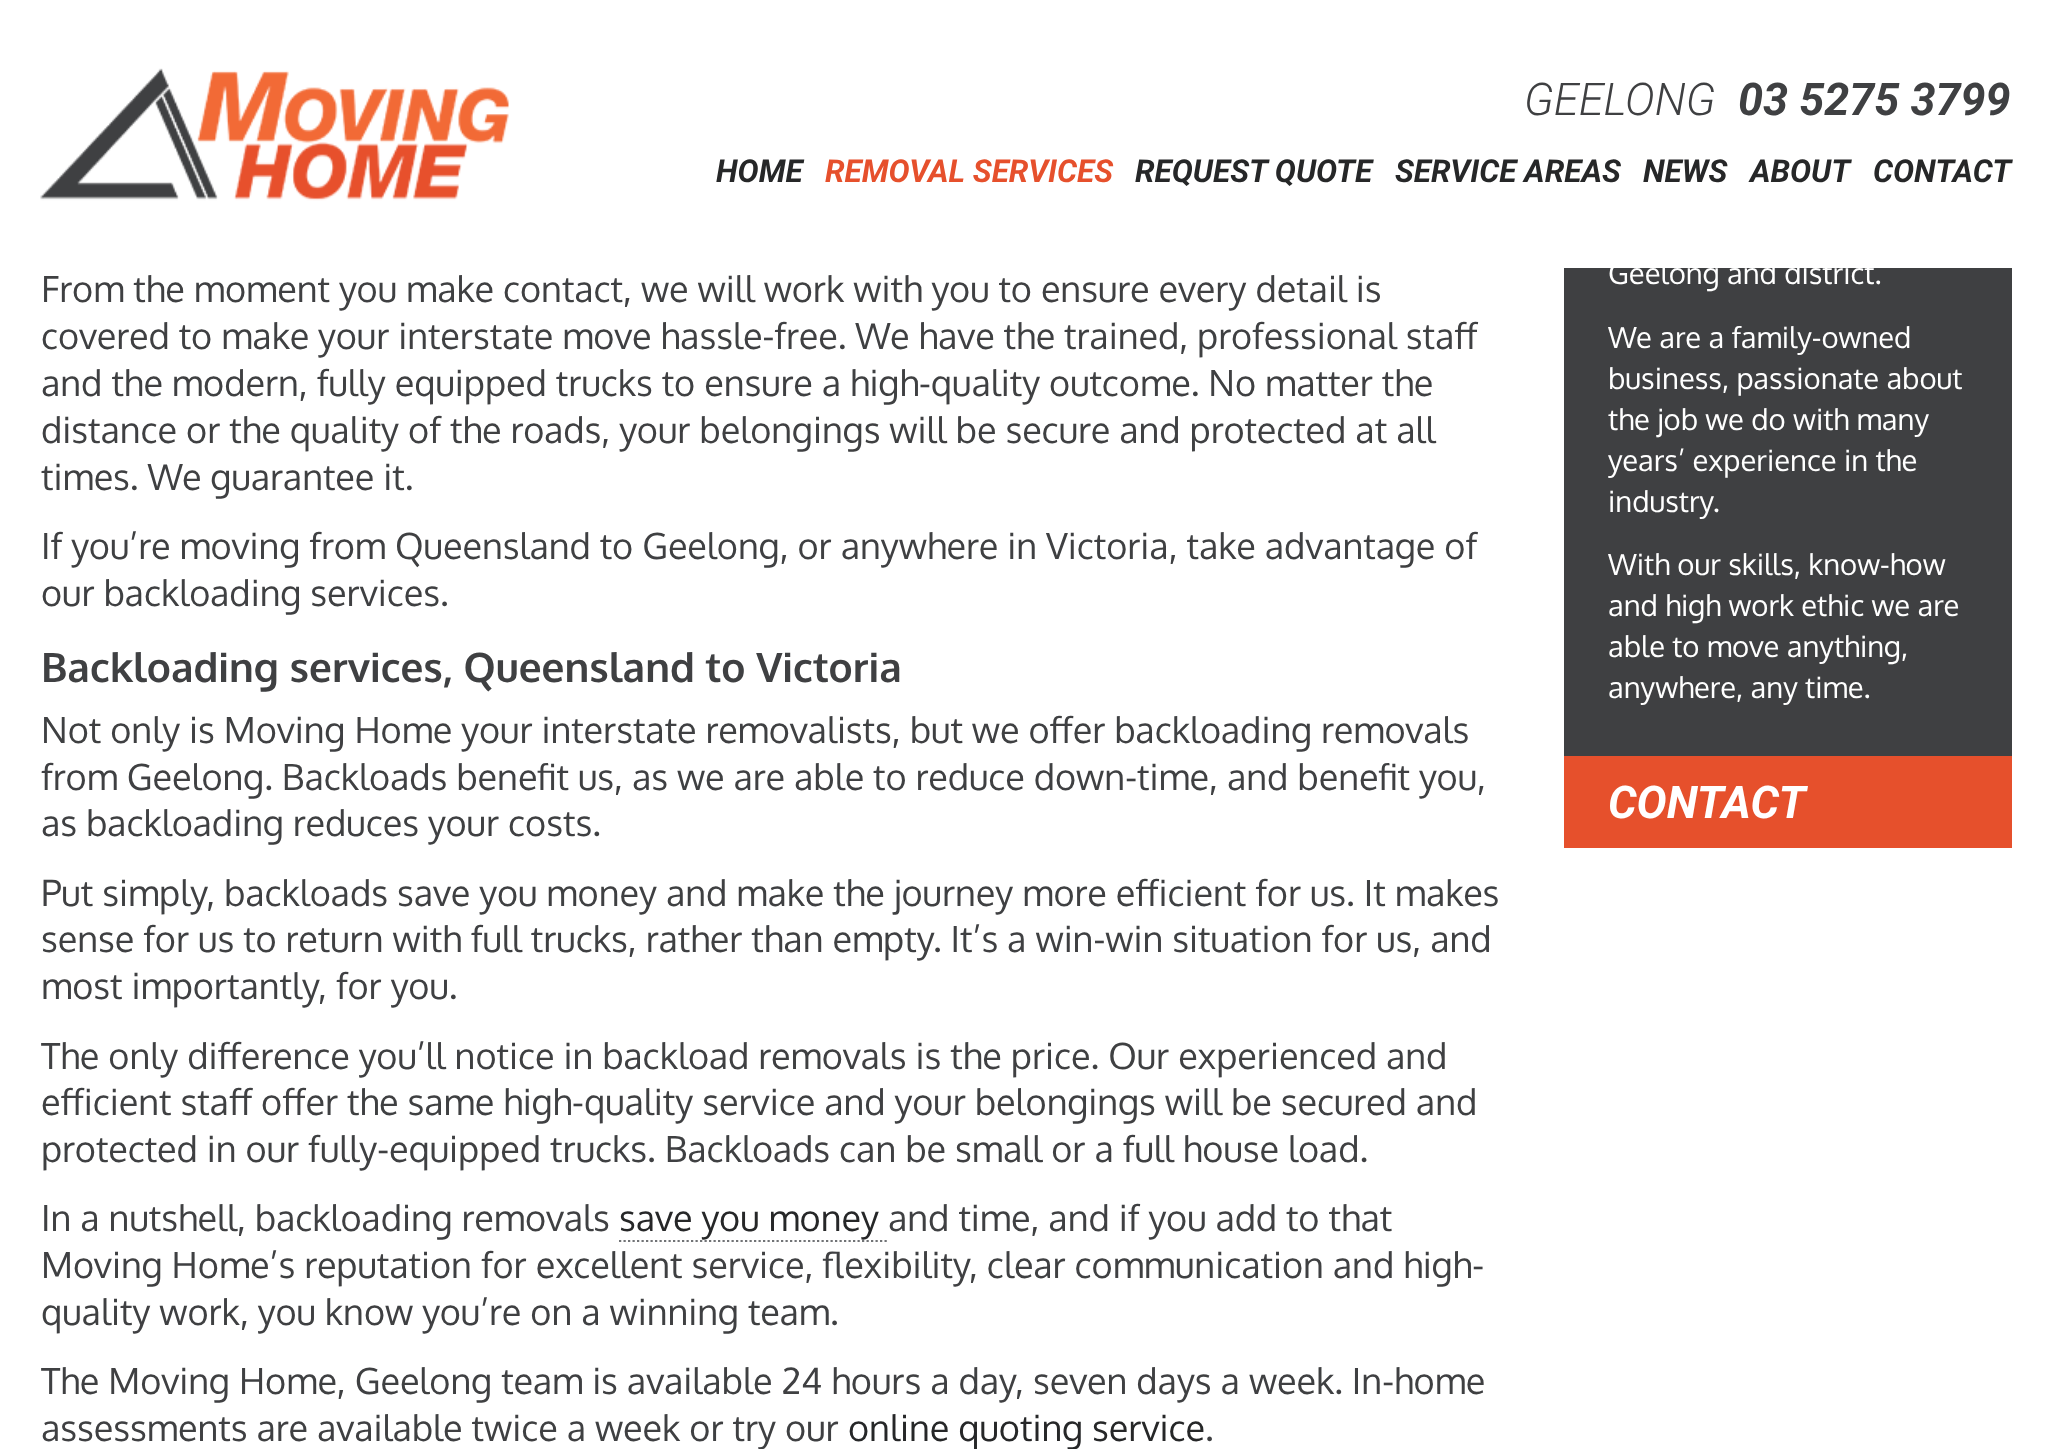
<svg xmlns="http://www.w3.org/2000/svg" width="2050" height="1449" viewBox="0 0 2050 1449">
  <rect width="100%" height="100%" fill="rgb(255,255,255)"/>
  <image x="40" y="68" width="469" height="133" href="pic1.png"/>
  <text x="1524" y="115" font-family="Roboto" font-size="45" font-weight="300" font-style="italic" fill="rgb(63,64,66)">GEELONG</text>
  <text x="1738" y="115" font-family="Roboto" font-size="45" font-weight="bold" font-style="italic" fill="rgb(63,64,66)">03 5275 3799</text>
  <text x="716" y="182" font-family="Roboto" font-size="31.5" font-weight="bold" font-style="italic" fill="rgb(38,39,40)">HOME</text>
  <text x="825" y="182" font-family="Roboto" font-size="31.5" font-weight="bold" font-style="italic" fill="rgb(230,80,44)">REMOVAL SERVICES</text>
  <g font-family="Roboto" font-size="31.5" font-weight="bold" font-style="italic" fill="rgb(38,39,40)">
    <text x="1135" y="182">REQUEST QUOTE</text>
    <text x="1395" y="182">SERVICE AREAS</text>
    <text x="1643" y="182">NEWS</text>
    <text x="1750" y="182">ABOUT</text>
    <text x="1873" y="182">CONTACT</text>
  </g>
  <g font-family="Oxygen" font-size="36" fill="rgb(63,64,66)">
    <text>
      <tspan x="41" y="302">From the moment you make contact, we will work with you to ensure every detail is</tspan>
      <tspan x="41" y="349">covered to make your interstate move hassle-free. We have the trained, professional staff</tspan>
      <tspan x="41" y="396">and the modern, fully equipped trucks to ensure a high-quality outcome. No matter the</tspan>
      <tspan x="41" y="443">distance or the quality of the roads, your belongings will be secure and protected at all</tspan>
      <tspan x="41" y="490">times. We guarantee it.</tspan>
      <tspan x="41" y="559">If you’re moving from Queensland to Geelong, or anywhere in Victoria, take advantage of</tspan>
      <tspan x="41" y="606">our backloading services.</tspan>
    </text>
  </g>
  <text x="41" y="682" font-family="Oxygen" font-size="40.5" font-weight="bold" fill="rgb(63,64,66)">Backloading services, Queensland to Victoria</text>
  <g font-family="Oxygen" font-size="36" fill="rgb(63,64,66)">
    <text>
      <tspan x="41" y="743">Not only is Moving Home your interstate removalists, but we offer backloading removals</tspan>
      <tspan x="41" y="790">from Geelong. Backloads benefit us, as we are able to reduce down-time, and benefit you,</tspan>
      <tspan x="41" y="836">as backloading reduces your costs.</tspan>
      <tspan x="41" y="906">Put simply, backloads save you money and make the journey more efficient for us. It makes</tspan>
      <tspan x="41" y="952">sense for us to return with full trucks, rather than empty. It’s a win-win situation for us, and</tspan>
      <tspan x="41" y="999">most importantly, for you.</tspan>
      <tspan x="41" y="1069">The only difference you’ll notice in backload removals is the price. Our experienced and</tspan>
      <tspan x="41" y="1115">efficient staff offer the same high-quality service and your belongings will be secured and</tspan>
      <tspan x="41" y="1162">protected in our fully-equipped trucks. Backloads can be small or a full house load.</tspan>
      <tspan x="41" y="1231">In a nutshell, backloading removals</tspan>
    </text>
  </g>
  <path d="M619 1241H889" fill="none" stroke="rgb(113,115,118)" stroke-width="2.2" stroke-dasharray="2.25 2.25"/>
  <text x="619" y="1231" font-family="Oxygen" font-size="36" fill="rgb(38,39,40)">save you money</text>
  <g font-family="Oxygen" font-size="36" fill="rgb(63,64,66)">
    <text x="888" y="1231">and time, and if you add to that</text>
    <text>
      <tspan x="41" y="1278">Moving Home’s reputation for excellent service, flexibility, clear communication and high-</tspan>
      <tspan x="41" y="1325">quality work, you know you’re on a winning team.</tspan>
      <tspan x="41" y="1394">The Moving Home, Geelong team is available 24 hours a day, seven days a week. In-home</tspan>
      <tspan x="41" y="1441">assessments are available twice a week or try our</tspan>
    </text>
  </g>
  <text x="848" y="1441" font-family="Oxygen" font-size="36" fill="rgb(38,39,40)">online quoting service</text>
  <text x="1205" y="1441" font-family="Oxygen" font-size="36" fill="rgb(63,64,66)">.</text>
  <rect x="1564" y="268" width="448" height="488" fill="rgb(63,64,66)"/>
  <g font-family="Oxygen" font-size="29.25" fill="rgb(255,255,255)">
    <text x="1608" y="284">Geelong and district.</text>
    <text>
      <tspan x="1608" y="348">We are a family-owned</tspan>
      <tspan x="1608" y="389">business, passionate about</tspan>
      <tspan x="1608" y="430">the job we do with many</tspan>
      <tspan x="1608" y="471">years’ experience in the</tspan>
      <tspan x="1608" y="512">industry.</tspan>
    </text>
    <text>
      <tspan x="1608" y="575">With our skills, know-how</tspan>
      <tspan x="1608" y="616">and high work ethic we are</tspan>
      <tspan x="1608" y="657">able to move anything,</tspan>
      <tspan x="1608" y="698">anywhere, any time.</tspan>
    </text>
  </g>
  <rect x="1564" y="756" width="448" height="92" fill="rgb(230,80,44)"/>
  <text x="1608" y="818" font-family="Roboto" font-size="45" font-weight="bold" font-style="italic" fill="rgb(255,255,255)">CONTACT</text>
</svg>
